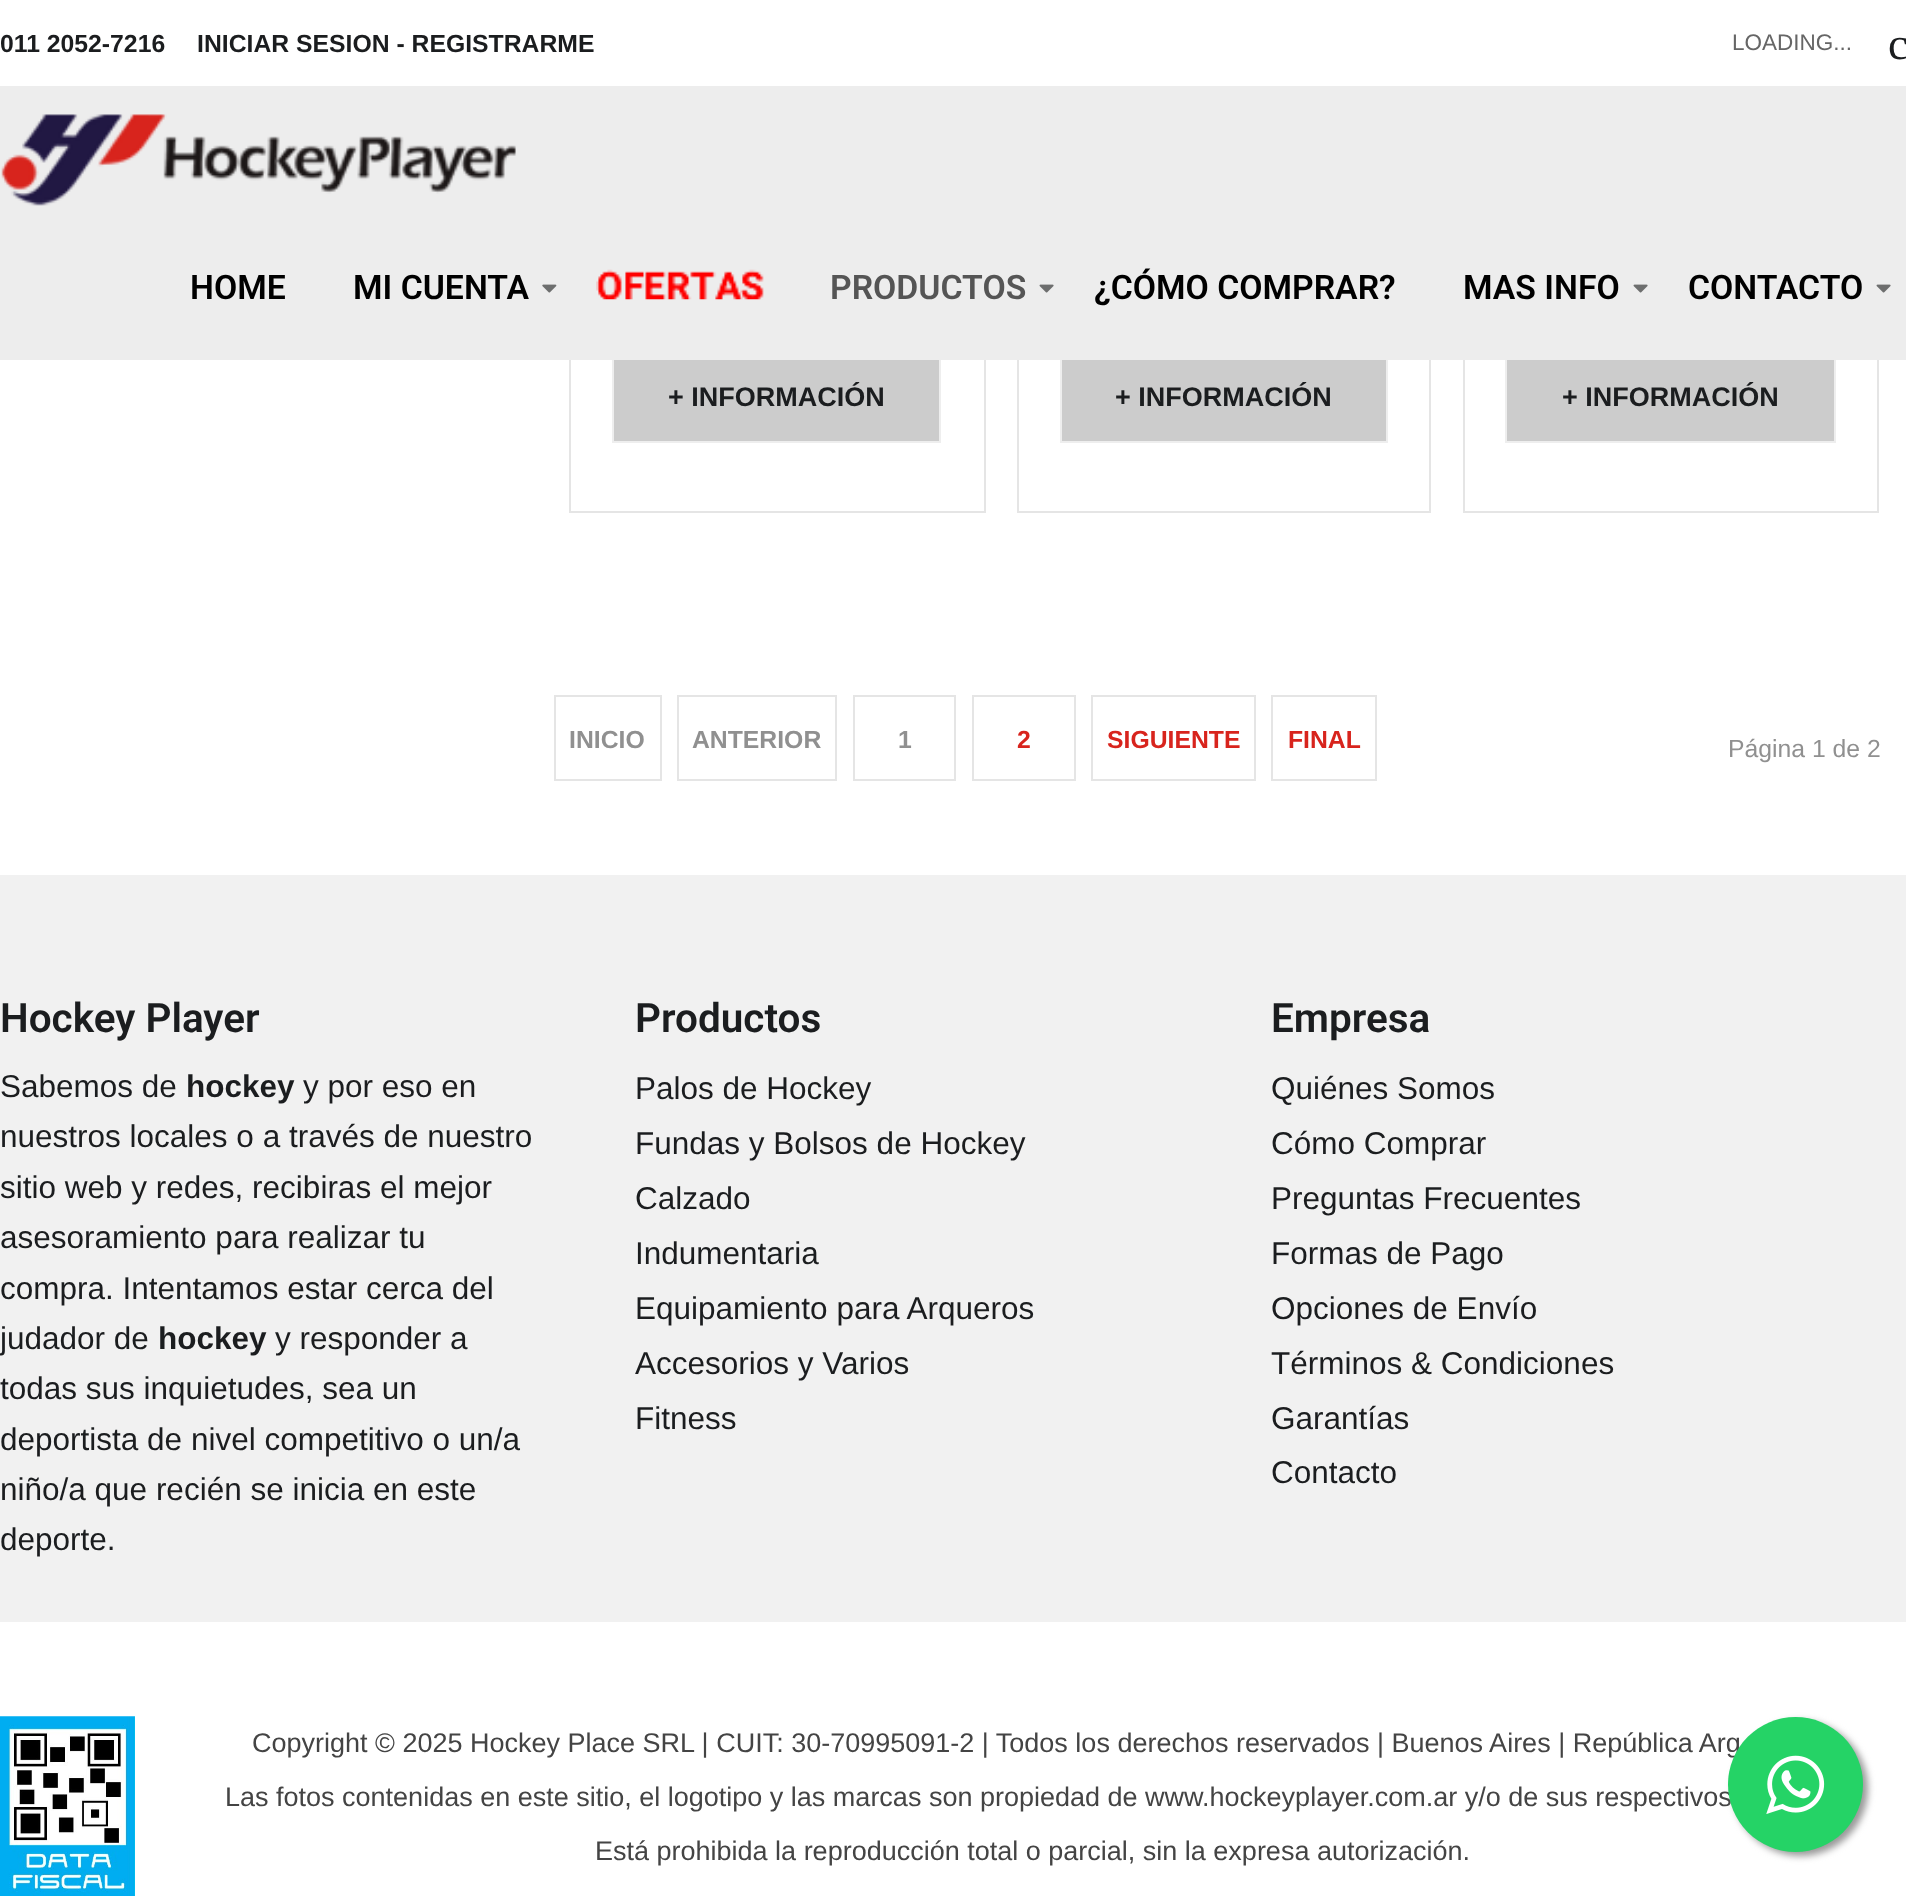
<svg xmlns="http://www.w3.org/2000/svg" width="1906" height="1896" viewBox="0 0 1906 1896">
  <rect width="100%" height="100%" fill="rgb(255,255,255)"/>
  <rect x="570" y="-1" width="415" height="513" fill="none" stroke="rgb(229,229,229)" stroke-width="2"/>
  <rect x="1018" y="-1" width="412" height="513" fill="none" stroke="rgb(229,229,229)" stroke-width="2"/>
  <rect x="1464" y="-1" width="414" height="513" fill="none" stroke="rgb(229,229,229)" stroke-width="2"/>
  <rect x="569" y="0" width="1310" height="86" fill="rgb(255,255,255)"/>
  <g font-family="Liberation Sans" font-size="24.75" font-weight="bold" fill="rgb(27,29,31)">
    <text x="0" y="52">011 2052-7216</text>
    <text x="197" y="52">INICIAR SESION - REGISTRARME</text>
  </g>
  <text x="1732" y="50" font-family="Liberation Sans" font-size="22.5" fill="rgb(102,102,102)">LOADING...</text>
  <text x="1888" y="59" font-family="Liberation Serif" font-size="45" fill="rgb(27,29,31)">c</text>
  <rect x="614" y="360" width="325" height="81" fill="rgb(204,204,204)"/>
  <rect x="613" y="354" width="327" height="88" fill="none" stroke="rgb(238,238,238)" stroke-width="2"/>
  <rect x="1062" y="360" width="324" height="81" fill="rgb(204,204,204)"/>
  <rect x="1061" y="354" width="326" height="88" fill="none" stroke="rgb(238,238,238)" stroke-width="2"/>
  <rect x="1507" y="360" width="327" height="81" fill="rgb(204,204,204)"/>
  <rect x="1506" y="354" width="329" height="88" fill="none" stroke="rgb(238,238,238)" stroke-width="2"/>
  <rect x="0" y="86" width="1906" height="274" fill="rgb(237,237,237)"/>
  <image x="1" y="114" width="515" height="92" href="pic1.png"/>
  <g font-family="Roboto" font-size="33.75" font-weight="600" fill="rgb(0,0,0)">
    <text x="190" y="299">HOME</text>
    <text x="353" y="299">MI CUENTA</text>
  </g>
  <image x="542" y="284" width="15" height="9" href="pic2.png"/>
  <image x="596" y="269" width="168" height="31" href="pic3.png"/>
  <text x="830" y="299" font-family="Roboto" font-size="33.75" font-weight="600" fill="rgb(85,85,85)">PRODUCTOS</text>
  <image x="1039" y="284" width="15" height="9" href="pic4.png"/>
  <g font-family="Roboto" font-size="33.75" font-weight="600" fill="rgb(0,0,0)">
    <text x="1094" y="299">¿CÓMO COMPRAR?</text>
    <text x="1463" y="299">MAS INFO</text>
  </g>
  <image x="1633" y="284" width="15" height="9" href="pic4.png"/>
  <text x="1688" y="299" font-family="Roboto" font-size="33.75" font-weight="600" fill="rgb(0,0,0)">CONTACTO</text>
  <image x="1876" y="284" width="15" height="9" href="pic4.png"/>
  <g font-family="Liberation Sans" font-size="27" font-weight="bold" fill="rgb(27,29,31)">
    <text x="668" y="406">+ INFORMACIÓN</text>
    <text x="1115" y="406">+ INFORMACIÓN</text>
    <text x="1562" y="406">+ INFORMACIÓN</text>
  </g>
  <rect x="555" y="696" width="106" height="84" fill="none" stroke="rgb(229,229,229)" stroke-width="2"/>
  <text x="569" y="748" font-family="Liberation Sans" font-size="24.75" font-weight="bold" fill="rgb(144,144,144)">INICIO</text>
  <rect x="678" y="696" width="158" height="84" fill="none" stroke="rgb(229,229,229)" stroke-width="2"/>
  <text x="692" y="748" font-family="Liberation Sans" font-size="24.75" font-weight="bold" fill="rgb(144,144,144)">ANTERIOR</text>
  <rect x="854" y="696" width="101" height="84" fill="none" stroke="rgb(229,229,229)" stroke-width="2"/>
  <text x="898" y="748" font-family="Liberation Sans" font-size="24.75" font-weight="bold" fill="rgb(144,144,144)">1</text>
  <rect x="973" y="696" width="102" height="84" fill="none" stroke="rgb(229,229,229)" stroke-width="2"/>
  <text x="1017" y="748" font-family="Liberation Sans" font-size="24.75" font-weight="bold" fill="rgb(216,36,29)">2</text>
  <rect x="1092" y="696" width="163" height="84" fill="none" stroke="rgb(229,229,229)" stroke-width="2"/>
  <text x="1107" y="748" font-family="Liberation Sans" font-size="24.75" font-weight="bold" fill="rgb(216,36,29)">SIGUIENTE</text>
  <rect x="1272" y="696" width="104" height="84" fill="none" stroke="rgb(229,229,229)" stroke-width="2"/>
  <text x="1288" y="748" font-family="Liberation Sans" font-size="24.75" font-weight="bold" fill="rgb(216,36,29)">FINAL</text>
  <text x="1728" y="757" font-family="Liberation Sans" font-size="24.75" fill="rgb(144,144,144)">Página 1 de 2</text>
  <rect x="0" y="875" width="1906" height="747" fill="rgb(241,241,241)"/>
  <text x="0" y="1032" font-family="Roboto" font-size="40.5" font-weight="600" fill="rgb(27,29,31)">Hockey Player</text>
  <text x="0" y="1097" font-family="Liberation Sans" font-size="31.5" fill="rgb(27,29,31)">Sabemos de</text>
  <text x="186" y="1097" font-family="Liberation Sans" font-size="31.5" font-weight="bold" fill="rgb(27,29,31)">hockey</text>
  <g font-family="Liberation Sans" font-size="31.5" fill="rgb(27,29,31)">
    <text x="303" y="1097">y por eso en</text>
    <text>
      <tspan x="0" y="1147">nuestros locales o a través de nuestro</tspan>
      <tspan x="0" y="1198">sitio web y redes, recibiras el mejor</tspan>
      <tspan x="0" y="1248">asesoramiento para realizar tu</tspan>
      <tspan x="0" y="1299">compra. Intentamos estar cerca del</tspan>
      <tspan x="0" y="1349">judador de</tspan>
    </text>
  </g>
  <text x="158" y="1349" font-family="Liberation Sans" font-size="31.5" font-weight="bold" fill="rgb(27,29,31)">hockey</text>
  <g font-family="Liberation Sans" font-size="31.5" fill="rgb(27,29,31)">
    <text x="275" y="1349">y responder a</text>
    <text>
      <tspan x="0" y="1399">todas sus inquietudes, sea un</tspan>
      <tspan x="0" y="1450">deportista de nivel competitivo o un/a</tspan>
      <tspan x="0" y="1500">niño/a que recién se inicia en este</tspan>
      <tspan x="0" y="1550">deporte.</tspan>
    </text>
  </g>
  <text x="635" y="1032" font-family="Roboto" font-size="40.5" font-weight="600" fill="rgb(27,29,31)">Productos</text>
  <g font-family="Liberation Sans" font-size="31.5" fill="rgb(27,29,31)">
    <text>
      <tspan x="635" y="1099">Palos de Hockey</tspan>
      <tspan x="635" y="1154">Fundas y Bolsos de Hockey</tspan>
      <tspan x="635" y="1209">Calzado</tspan>
      <tspan x="635" y="1264">Indumentaria</tspan>
      <tspan x="635" y="1319">Equipamiento para Arqueros</tspan>
      <tspan x="635" y="1374">Accesorios y Varios</tspan>
      <tspan x="635" y="1429">Fitness</tspan>
    </text>
  </g>
  <text x="1271" y="1032" font-family="Roboto" font-size="40.5" font-weight="600" fill="rgb(27,29,31)">Empresa</text>
  <g font-family="Liberation Sans" font-size="31.5" fill="rgb(27,29,31)">
    <text>
      <tspan x="1271" y="1099">Quiénes Somos</tspan>
      <tspan x="1271" y="1154">Cómo Comprar</tspan>
      <tspan x="1271" y="1209">Preguntas Frecuentes</tspan>
      <tspan x="1271" y="1264">Formas de Pago</tspan>
      <tspan x="1271" y="1319">Opciones de Envío</tspan>
      <tspan x="1271" y="1374">Términos &amp; Condiciones</tspan>
      <tspan x="1271" y="1429">Garantías</tspan>
      <tspan x="1271" y="1483">Contacto</tspan>
    </text>
  </g>
  <image x="0" y="1716" width="135" height="180" href="pic5.png"/>
  <g font-family="Liberation Sans" font-size="27" fill="rgb(68,68,68)">
    <text x="252" y="1752">Copyright © 2025 Hockey Place SRL | CUIT: 30-70995091-2 | Todos los derechos reservados | Buenos Aires | República Arg</text>
    <text x="225" y="1806">Las fotos contenidas en este sitio, el logotipo y las marcas son propiedad de www.hockeyplayer.com.ar y/o de sus respectivos</text>
    <text x="595" y="1860">Está prohibida la reproducción total o parcial, sin la expresa autorización.</text>
  </g>
  <rect x="1733" y="1721" width="135" height="135" rx="67.5" fill="rgb(153,153,153)" filter="blur(3.5px)"/>
  <circle cx="1795.5" cy="1784.5" r="67.5" fill="rgb(37,211,102)"/>
  <image x="1766" y="1755" width="59" height="59" href="pic6.png"/>
</svg>
